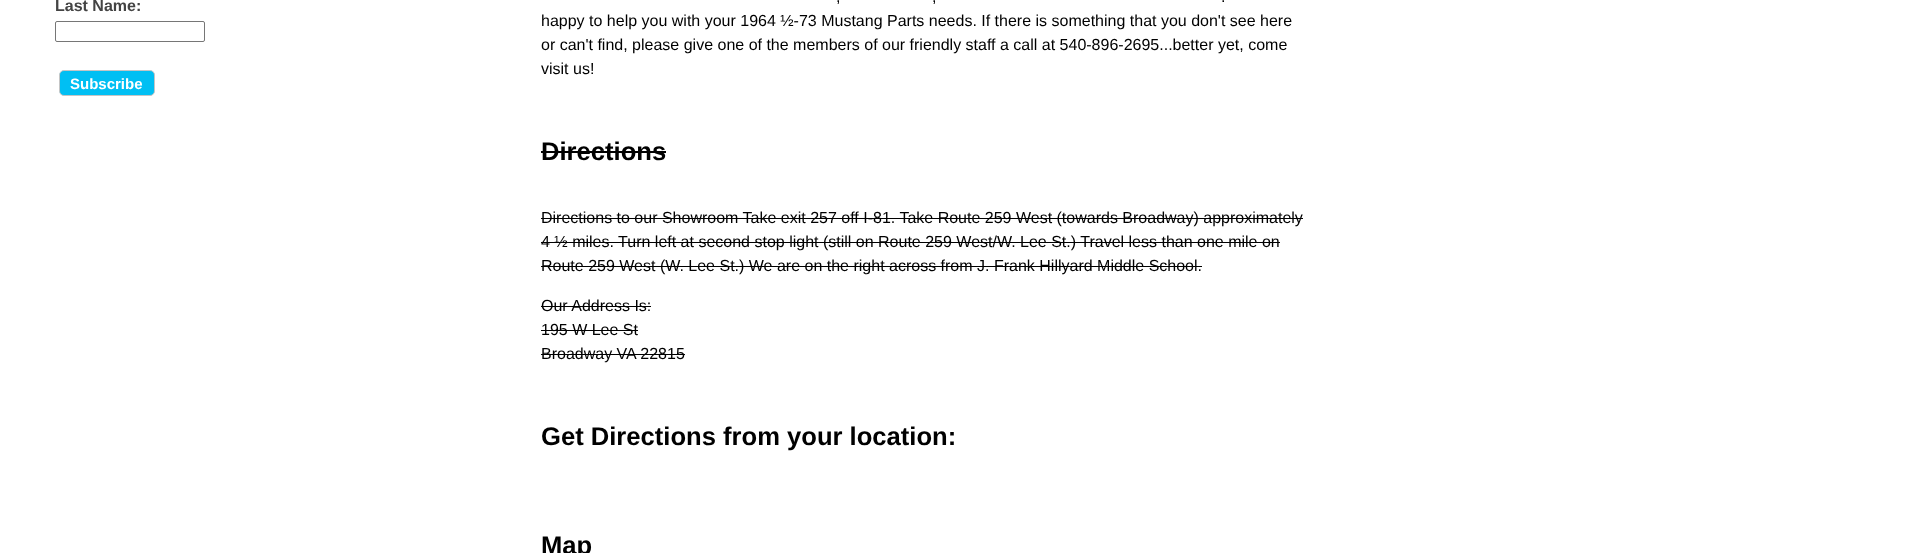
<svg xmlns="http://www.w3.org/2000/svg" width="1921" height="553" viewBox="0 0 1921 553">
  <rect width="100%" height="100%" fill="rgb(255,255,255)"/>
  <text x="55" y="11" font-family="Liberation Sans" font-size="16" font-weight="bold" fill="rgb(68,68,68)">Last Name:</text>
  <rect x="55.5" y="21.5" width="149" height="20" rx="1.5" fill="none" stroke="rgb(118,118,118)"/>
  <rect x="59.5" y="70.5" width="95" height="25" rx="4.5" fill="rgb(0,191,243)" stroke="rgb(197,197,197)"/>
  <text x="70" y="89" font-family="Liberation Sans" font-size="15" font-weight="bold" fill="rgb(255,255,255)">Subscribe</text>
  <g font-family="Liberation Sans" font-size="16" fill="rgb(0,0,0)">
    <text x="836" y="2">,</text>
    <text x="932" y="2">,</text>
    <text x="1221" y="2">.</text>
    <text>
      <tspan x="541" y="26">happy to help you with your 1964 ½-73 Mustang Parts needs. If there is something that you don't see here</tspan>
      <tspan x="541" y="50">or can't find, please give one of the members of our friendly staff a call at 540-896-2695...better yet, come</tspan>
      <tspan x="541" y="74">visit us!</tspan>
    </text>
  </g>
  <text x="541" y="160" font-family="Liberation Sans" font-size="25.6" font-weight="bold" fill="rgb(0,0,0)">Directions</text>
  <rect x="541" y="151" width="125" height="2" fill="rgb(0,0,0)"/>
  <text x="541" y="223" font-family="Liberation Sans" font-size="16" fill="rgb(0,0,0)">Directions to our Showroom Take exit 257 off I-81. Take Route 259 West (towards Broadway) approximately</text>
  <rect x="541" y="218" width="762" height="1" fill="rgb(0,0,0)"/>
  <text x="541" y="247" font-family="Liberation Sans" font-size="16" fill="rgb(0,0,0)">4 ½ miles. Turn left at second stop light (still on Route 259 West/W. Lee St.) Travel less than one mile on</text>
  <rect x="541" y="242" width="739" height="1" fill="rgb(0,0,0)"/>
  <text x="541" y="271" font-family="Liberation Sans" font-size="16" fill="rgb(0,0,0)">Route 259 West (W. Lee St.) We are on the right across from J. Frank Hillyard Middle School.</text>
  <rect x="541" y="266" width="661" height="1" fill="rgb(0,0,0)"/>
  <text x="541" y="311" font-family="Liberation Sans" font-size="16" fill="rgb(0,0,0)">Our Address Is:</text>
  <rect x="541" y="306" width="110" height="1" fill="rgb(0,0,0)"/>
  <text x="541" y="335" font-family="Liberation Sans" font-size="16" fill="rgb(0,0,0)">195 W Lee St</text>
  <rect x="541" y="330" width="97" height="1" fill="rgb(0,0,0)"/>
  <text x="541" y="359" font-family="Liberation Sans" font-size="16" fill="rgb(0,0,0)">Broadway VA 22815</text>
  <rect x="541" y="354" width="144" height="1" fill="rgb(0,0,0)"/>
  <g font-family="Liberation Sans" font-size="25.6" font-weight="bold" fill="rgb(0,0,0)">
    <text x="541" y="445">Get Directions from your location:</text>
    <text x="541" y="554">Map</text>
  </g>
</svg>
